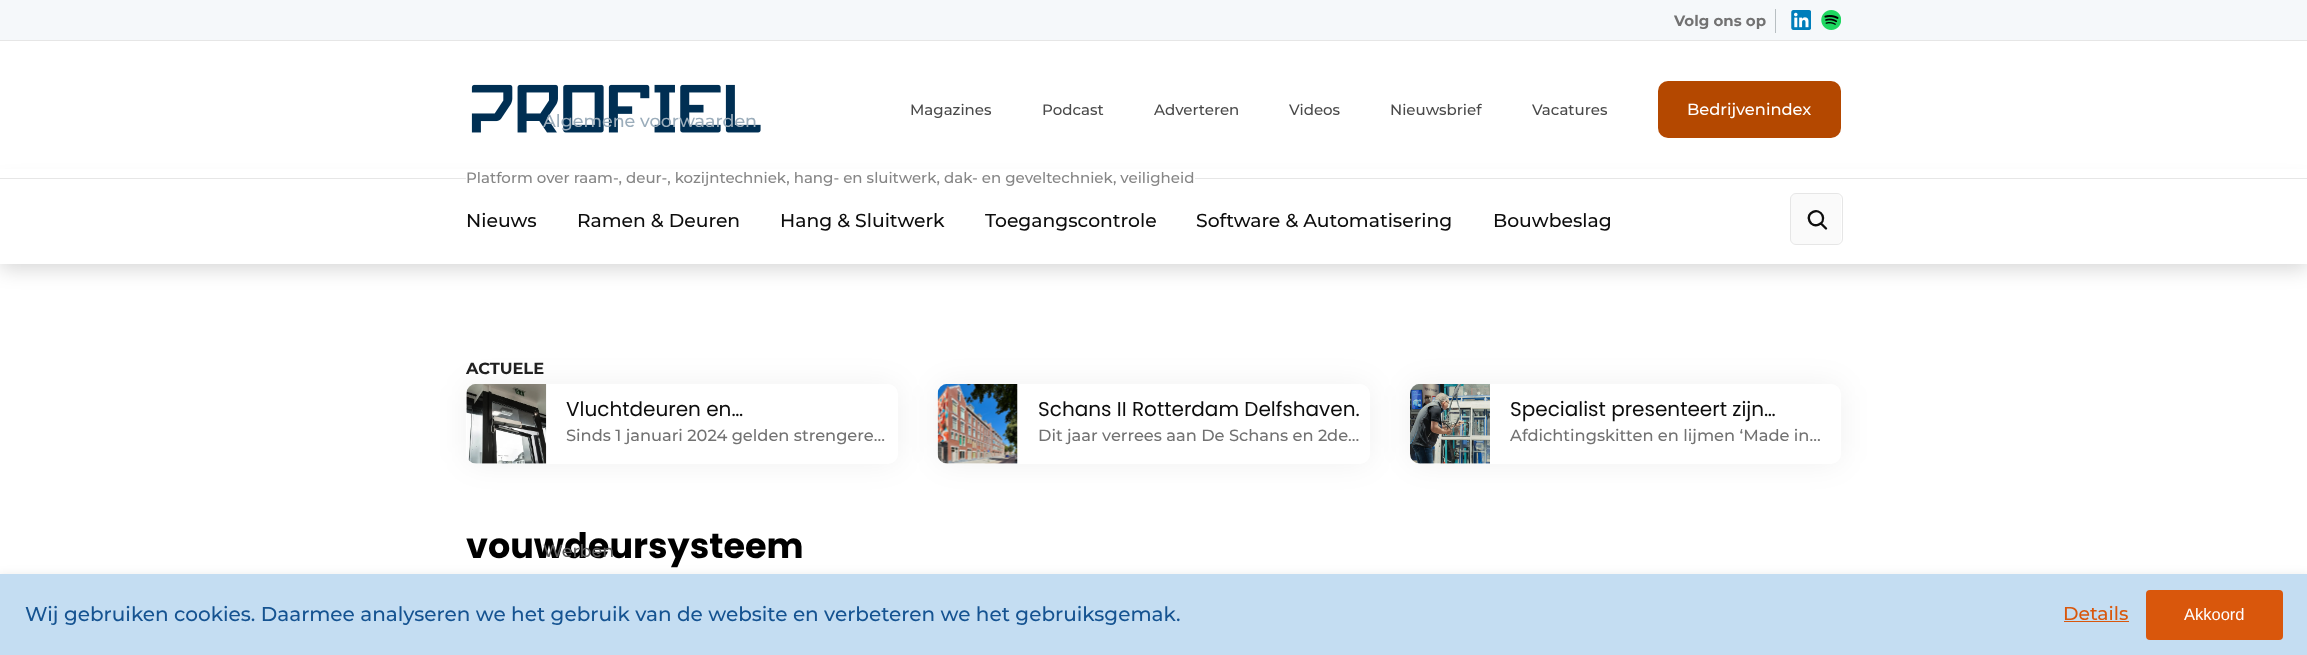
<svg xmlns="http://www.w3.org/2000/svg" width="2307" height="655" viewBox="0 0 2307 655">
  <rect width="100%" height="100%" fill="rgb(255,255,255)"/>
  <rect x="0" y="0" width="2307" height="40" fill="rgb(245,248,250)"/>
  <rect x="0" y="40" width="2307" height="1" fill="rgb(230,230,230)"/>
  <text x="1674" y="26" font-family="Montserrat" font-size="15" font-weight="bold" fill="rgb(114,114,114)">Volg ons op</text>
  <rect x="1775" y="9" width="1" height="24" fill="rgb(184,191,194)"/>
  <image x="1791" y="10" width="20" height="20" href="pic1.png"/>
  <image x="1821" y="10" width="20" height="20" href="pic2.png"/>
  <image x="471" y="84" width="290" height="49" href="pic3.png"/>
  <g font-family="Montserrat" font-size="15" font-weight="500" fill="rgb(74,74,74)">
    <text x="910" y="115">Magazines</text>
    <text x="1042" y="115">Podcast</text>
    <text x="1154" y="115">Adverteren</text>
    <text x="1289" y="115">Videos</text>
    <text x="1390" y="115">Nieuwsbrief</text>
    <text x="1532" y="115">Vacatures</text>
  </g>
  <rect x="1658" y="81" width="183" height="57" rx="10" fill="rgb(180,72,0)"/>
  <text x="1687" y="115" font-family="Montserrat" font-size="16.25" font-weight="500" fill="rgb(255,255,255)">Bedrijvenindex</text>
  <rect x="0" y="184" width="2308" height="85" fill="rgba(0,0,0,0.16)" filter="blur(10px)"/>
  <rect x="0" y="169" width="2307" height="9" fill="rgb(255,255,255)"/>
  <rect x="0" y="178" width="2307" height="1" fill="rgb(230,230,230)"/>
  <rect x="466" y="178" width="729" height="1" fill="rgb(255,255,255)"/>
  <rect x="0" y="179" width="2307" height="85" fill="rgb(255,255,255)"/>
  <text x="466" y="183" font-family="Montserrat" font-size="15" font-weight="500" fill="rgb(134,134,134)">Platform over raam-, deur-, kozijntechniek, hang- en sluitwerk, dak- en geveltechniek, veiligheid</text>
  <text x="543" y="127" font-family="Montserrat" font-size="17.5" font-weight="500" fill="rgb(155,173,187)">Algemene voorwaarden</text>
  <text x="466" y="558" font-family="Poppins" font-size="35" font-weight="bold" fill="rgb(0,0,0)">vouwdeursysteem</text>
  <text x="543" y="557" font-family="Montserrat" font-size="17.5" font-weight="500" fill="rgb(93,93,93)">Werben</text>
  <g font-family="Montserrat" font-size="18.75" font-weight="500" fill="rgb(13,13,13)">
    <text x="466" y="227">Nieuws</text>
    <text x="577" y="227">Ramen &amp; Deuren</text>
    <text x="780" y="227">Hang &amp; Sluitwerk</text>
    <text x="985" y="227">Toegangscontrole</text>
    <text x="1196" y="227">Software &amp; Automatisering</text>
    <text x="1493" y="227">Bouwbeslag</text>
  </g>
  <rect x="1791" y="194" width="50" height="50" rx="5" fill="rgb(250,250,250)"/>
  <path d="M1809.5 221C1813 229.5 1826 224 1822.5 215.5C1818.5 207 1805.5 212.5 1809.5 221ZM1821 223.5L1826 228.5" fill="none" stroke="rgb(13,13,13)" stroke-width="2.4" stroke-linecap="round" stroke-linejoin="round"/>
  <rect x="1790.5" y="193.5" width="52" height="51" rx="5.5" fill="none" stroke="rgb(230,230,230)"/>
  <text x="466" y="374" font-family="Montserrat" font-size="16.25" font-weight="bold" fill="rgb(33,33,33)">ACTUELE</text>
  <rect x="466" y="384" width="432" height="80" rx="10" fill="rgba(0,0,0,0.06)" filter="blur(15px)"/>
  <rect x="466" y="384" width="432" height="80" rx="10" fill="rgb(255,255,255)"/>
  <image x="466" y="384" width="81" height="80" href="pic4.png"/>
  <text x="566" y="416" font-family="Poppins" font-size="20" fill="rgb(13,13,13)">Vluchtdeuren en…</text>
  <text x="566" y="441" font-family="Montserrat" font-size="16.25" font-weight="500" fill="rgb(114,114,114)">Sinds 1 januari 2024 gelden strengere…</text>
  <rect x="938" y="384" width="432" height="80" rx="10" fill="rgba(0,0,0,0.06)" filter="blur(15px)"/>
  <rect x="938" y="384" width="432" height="80" rx="10" fill="rgb(255,255,255)"/>
  <image x="937" y="384" width="81" height="80" href="pic5.png"/>
  <text x="1038" y="416" font-family="Poppins" font-size="20" fill="rgb(13,13,13)">Schans II Rotterdam Delfshaven.</text>
  <text x="1038" y="441" font-family="Montserrat" font-size="16.25" font-weight="500" fill="rgb(114,114,114)">Dit jaar verrees aan De Schans en 2de…</text>
  <rect x="1410" y="384" width="431" height="80" rx="10" fill="rgba(0,0,0,0.06)" filter="blur(15px)"/>
  <rect x="1410" y="384" width="431" height="80" rx="10" fill="rgb(255,255,255)"/>
  <image x="1410" y="384" width="80" height="80" href="pic6.png"/>
  <text x="1510" y="416" font-family="Poppins" font-size="20" fill="rgb(13,13,13)">Specialist presenteert zijn…</text>
  <text x="1510" y="441" font-family="Montserrat" font-size="16.25" font-weight="500" fill="rgb(114,114,114)">Afdichtingskitten en lijmen ‘Made in…</text>
  <rect x="-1" y="573" width="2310" height="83" fill="rgba(0,0,0,0.06)" filter="blur(4px)"/>
  <rect x="0" y="574" width="2307" height="81" fill="rgb(196,221,242)"/>
  <text x="25" y="621" font-family="Montserrat" font-size="20" font-weight="500" fill="rgb(21,83,145)">Wij gebruiken cookies. Daarmee analyseren we het gebruik van de website en verbeteren we het gebruiksgemak.</text>
  <text x="2063" y="620" font-family="Montserrat" font-size="18.75" font-weight="500" fill="rgb(217,87,12)">Details</text>
  <rect x="2064" y="621" width="65" height="1" fill="rgb(217,87,12)"/>
  <rect x="2146" y="590" width="137" height="50" rx="4" fill="rgb(217,87,12)"/>
  <text x="2184" y="620" font-family="Liberation Sans" font-size="16.5" fill="rgb(255,255,255)">Akkoord</text>
</svg>
